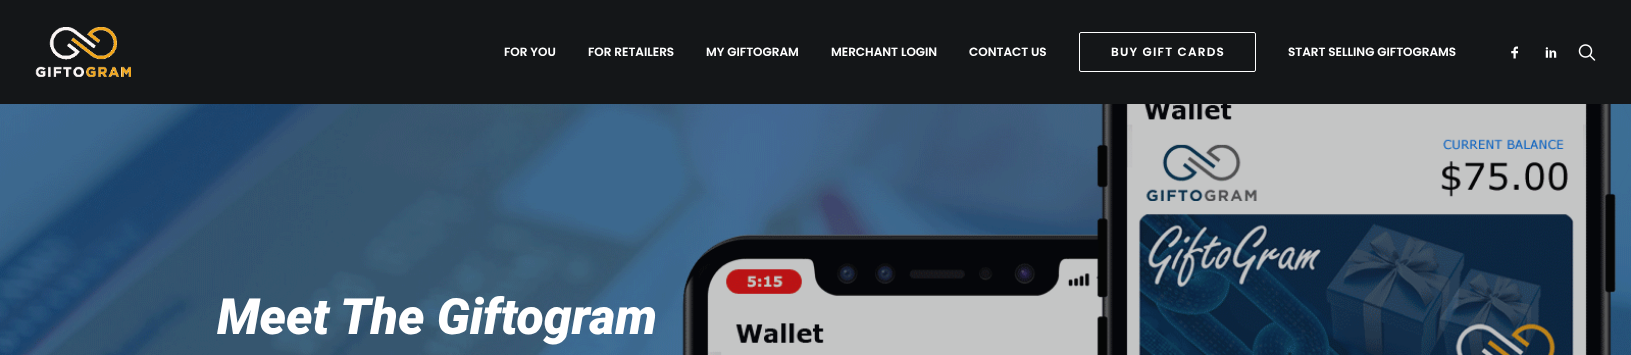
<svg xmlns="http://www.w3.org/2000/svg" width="1631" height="355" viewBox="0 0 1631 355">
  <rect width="100%" height="100%" fill="rgb(20,22,24)"/>
  <image x="35" y="27" width="96" height="50" href="pic1.png"/>
  <g font-family="Poppins" font-size="12" font-weight="600" fill="rgb(255,255,255)">
    <text x="504" y="56">FOR YOU</text>
    <text x="588" y="56">FOR RETAILERS</text>
    <text x="706" y="56">MY GIFTOGRAM</text>
    <text x="831" y="56">MERCHANT LOGIN</text>
    <text x="969" y="56">CONTACT US</text>
  </g>
  <rect x="1079.5" y="32.5" width="176" height="39" rx="1.5" fill="none" stroke="rgb(255,255,255)"/>
  <text x="1111" y="56" font-family="Poppins" font-size="12" font-weight="600" letter-spacing="1.25" fill="rgb(255,255,255)">BUY GIFT CARDS</text>
  <text x="1288" y="56" font-family="Poppins" font-size="12" font-weight="600" fill="rgb(255,255,255)">START SELLING GIFTOGRAMS</text>
  <image x="1511" y="46" width="7" height="13" href="pic2.png"/>
  <image x="1545" y="47" width="12" height="11" href="pic3.png"/>
  <image x="1578" y="44" width="18" height="17" href="pic4.png"/>
  <image x="0" y="104" width="1631" height="251" href="pic5.png"/>
  <text x="217" y="334" font-family="Roboto" font-size="50" font-weight="900" font-style="italic" fill="rgb(255,255,255)">Meet The Giftogram</text>
</svg>
